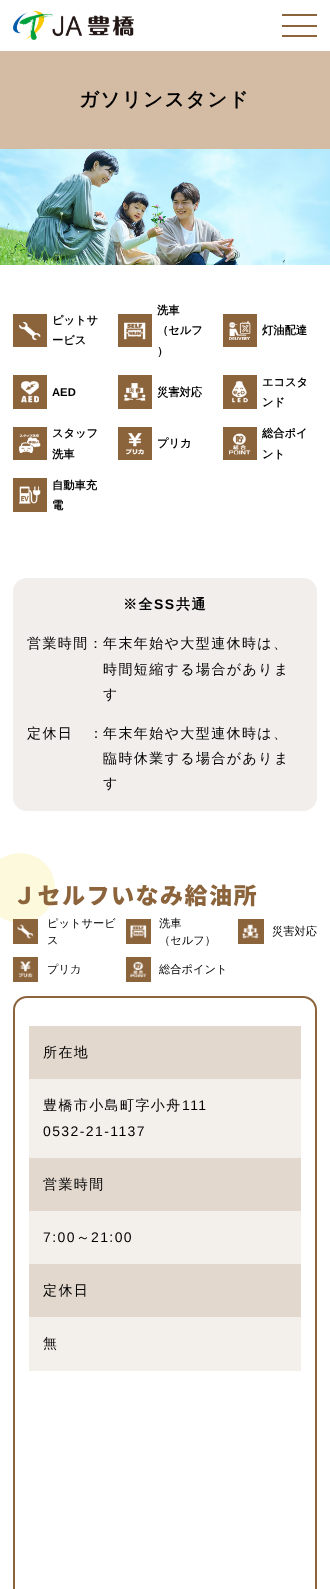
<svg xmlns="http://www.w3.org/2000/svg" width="330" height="1589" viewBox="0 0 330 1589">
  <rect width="100%" height="100%" fill="rgb(255,255,255)"/>
  <rect x="282" y="14" width="35" height="2" fill="rgb(140,100,60)"/>
  <rect x="282" y="25" width="35" height="2" fill="rgb(140,100,60)"/>
  <rect x="282" y="35" width="35" height="2" fill="rgb(140,100,60)"/>
  <image x="13" y="10" width="121" height="30" href="pic1.png"/>
  <rect x="0" y="51" width="330" height="98" fill="rgb(212,188,164)"/>
  <text x="79" y="106" font-family="WenQuanYi Zen Hei" font-size="19.5" font-weight="bold" letter-spacing="1.4" fill="rgb(0,0,0)">ガソリンスタンド</text>
  <image x="0" y="149" width="330" height="116" href="pic2.png"/>
  <rect x="13" y="314" width="34" height="33" fill="rgb(140,100,60)"/>
  <image x="19" y="322" width="22" height="18" href="pic3.png"/>
  <g font-family="WenQuanYi Zen Hei" font-size="11.25" font-weight="bold" fill="rgb(0,0,0)">
    <text>
      <tspan x="52" y="324">ピットサ</tspan>
      <tspan x="52" y="344">ービス</tspan>
    </text>
  </g>
  <rect x="118" y="314" width="34" height="33" fill="rgb(140,100,60)"/>
  <image x="124" y="322" width="22" height="18" href="pic4.png"/>
  <g font-family="WenQuanYi Zen Hei" font-size="11.25" font-weight="bold" fill="rgb(0,0,0)">
    <text>
      <tspan x="157" y="314">洗車</tspan>
      <tspan x="157" y="334">（セルフ</tspan>
      <tspan x="157" y="355">）</tspan>
    </text>
  </g>
  <rect x="223" y="314" width="34" height="33" fill="rgb(140,100,60)"/>
  <image x="229" y="321" width="22" height="19" href="pic5.png"/>
  <text x="262" y="334" font-family="WenQuanYi Zen Hei" font-size="11.25" font-weight="bold" fill="rgb(0,0,0)">灯油配達</text>
  <rect x="13" y="375" width="34" height="34" fill="rgb(140,100,60)"/>
  <image x="21" y="381" width="18" height="22" href="pic6.png"/>
  <text x="52" y="396" font-family="Liberation Sans" font-size="11.25" font-weight="bold" fill="rgb(0,0,0)">AED</text>
  <rect x="118" y="375" width="34" height="34" fill="rgb(140,100,60)"/>
  <image x="124" y="383" width="22" height="18" href="pic7.png"/>
  <text x="157" y="396" font-family="WenQuanYi Zen Hei" font-size="11.25" font-weight="bold" fill="rgb(0,0,0)">災害対応</text>
  <rect x="223" y="375" width="34" height="34" fill="rgb(140,100,60)"/>
  <image x="232" y="381" width="16" height="22" href="pic8.png"/>
  <g font-family="WenQuanYi Zen Hei" font-size="11.25" font-weight="bold" fill="rgb(0,0,0)">
    <text>
      <tspan x="262" y="386">エコスタ</tspan>
      <tspan x="262" y="406">ンド</tspan>
    </text>
  </g>
  <rect x="13" y="427" width="34" height="33" fill="rgb(140,100,60)"/>
  <image x="19" y="434" width="22" height="19" href="pic9.png"/>
  <g font-family="WenQuanYi Zen Hei" font-size="11.25" font-weight="bold" fill="rgb(0,0,0)">
    <text>
      <tspan x="52" y="437">スタッフ</tspan>
      <tspan x="52" y="458">洗車</tspan>
    </text>
  </g>
  <rect x="118" y="427" width="34" height="33" fill="rgb(140,100,60)"/>
  <image x="126" y="433" width="18" height="22" href="pic10.png"/>
  <text x="157" y="447" font-family="WenQuanYi Zen Hei" font-size="11.25" font-weight="bold" fill="rgb(0,0,0)">プリカ</text>
  <rect x="223" y="427" width="34" height="33" fill="rgb(140,100,60)"/>
  <image x="229" y="433" width="22" height="22" href="pic11.png"/>
  <g font-family="WenQuanYi Zen Hei" font-size="11.25" font-weight="bold" fill="rgb(0,0,0)">
    <text>
      <tspan x="262" y="437">総合ポイ</tspan>
      <tspan x="262" y="458">ント</tspan>
    </text>
  </g>
  <rect x="13" y="478" width="34" height="34" fill="rgb(140,100,60)"/>
  <image x="19" y="486" width="22" height="18" href="pic12.png"/>
  <g font-family="WenQuanYi Zen Hei" font-size="11.25" font-weight="bold" fill="rgb(0,0,0)">
    <text>
      <tspan x="52" y="489">自動車充</tspan>
      <tspan x="52" y="509">電</tspan>
    </text>
  </g>
  <rect x="13" y="578" width="304" height="233" rx="14" fill="rgb(241,238,235)"/>
  <text x="123" y="609" font-family="WenQuanYi Zen Hei" font-size="14" font-weight="bold" letter-spacing="1.4" fill="rgb(0,0,0)">※全</text>
  <text x="154" y="609" font-family="Liberation Sans" font-size="14" font-weight="bold" letter-spacing="1.4" fill="rgb(0,0,0)">SS</text>
  <text x="176" y="609" font-family="WenQuanYi Zen Hei" font-size="14" font-weight="bold" letter-spacing="1.4" fill="rgb(0,0,0)">共通</text>
  <g font-family="WenQuanYi Zen Hei" font-size="14" font-weight="500" letter-spacing="1.4" fill="rgb(0,0,0)">
    <text x="27" y="648">営業時間：</text>
    <text>
      <tspan x="103" y="648">年末年始や大型連休時は、</tspan>
      <tspan x="103" y="674">時間短縮する場合がありま</tspan>
      <tspan x="103" y="699">す</tspan>
    </text>
    <text x="27" y="738">定休日</text>
    <text x="89" y="738">：</text>
    <text>
      <tspan x="103" y="738">年末年始や大型連休時は、</tspan>
      <tspan x="103" y="763">臨時休業する場合がありま</tspan>
      <tspan x="103" y="788">す</tspan>
    </text>
  </g>
  <circle cx="20" cy="888" r="35" fill="rgb(253,249,220)"/>
  <text x="13" y="904" font-family="Noto Sans JP" font-size="23.1" font-weight="900" letter-spacing="1.4" fill="rgb(140,100,60)">Ｊセルフいなみ給油所</text>
  <rect x="13" y="919" width="25" height="25" fill="rgb(140,100,60)"/>
  <image x="17" y="924" width="17" height="15" href="pic13.png"/>
  <g font-family="WenQuanYi Zen Hei" font-size="11.25" font-weight="500" fill="rgb(0,0,0)">
    <text>
      <tspan x="47" y="927">ピットサービ</tspan>
      <tspan x="47" y="944">ス</tspan>
    </text>
  </g>
  <rect x="126" y="919" width="25" height="25" fill="rgb(140,100,60)"/>
  <image x="130" y="924" width="17" height="15" href="pic14.png"/>
  <g font-family="WenQuanYi Zen Hei" font-size="11.25" font-weight="500" fill="rgb(0,0,0)">
    <text>
      <tspan x="159" y="927">洗車</tspan>
      <tspan x="159" y="944">（セルフ）</tspan>
    </text>
  </g>
  <rect x="238" y="919" width="26" height="25" fill="rgb(140,100,60)"/>
  <image x="242" y="924" width="17" height="15" href="pic15.png"/>
  <text x="272" y="935" font-family="WenQuanYi Zen Hei" font-size="11.25" font-weight="500" fill="rgb(0,0,0)">災害対応</text>
  <rect x="13" y="957" width="25" height="25" fill="rgb(140,100,60)"/>
  <image x="18" y="961" width="15" height="17" href="pic16.png"/>
  <text x="47" y="973" font-family="WenQuanYi Zen Hei" font-size="11.25" font-weight="500" fill="rgb(0,0,0)">プリカ</text>
  <rect x="126" y="957" width="25" height="25" fill="rgb(140,100,60)"/>
  <image x="130" y="961" width="17" height="17" href="pic17.png"/>
  <text x="159" y="973" font-family="WenQuanYi Zen Hei" font-size="11.25" font-weight="500" fill="rgb(0,0,0)">総合ポイント</text>
  <rect x="14" y="997" width="302" height="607" rx="13" fill="none" stroke="rgb(140,100,60)" stroke-width="2"/>
  <rect x="29" y="1026" width="272" height="53" fill="rgb(226,216,206)"/>
  <text x="43" y="1057" font-family="WenQuanYi Zen Hei" font-size="14" font-weight="500" letter-spacing="1.4" fill="rgb(0,0,0)">所在地</text>
  <rect x="29" y="1079" width="272" height="79" fill="rgb(243,239,235)"/>
  <text x="43" y="1110" font-family="WenQuanYi Zen Hei" font-size="14" font-weight="500" letter-spacing="1.4" fill="rgb(0,0,0)">豊橋市小島町字小舟</text>
  <g font-family="Liberation Sans" font-size="14" letter-spacing="1.4" fill="rgb(0,0,0)">
    <text x="182" y="1110">111</text>
    <text x="43" y="1136">0532-21-1137</text>
  </g>
  <rect x="29" y="1158" width="272" height="53" fill="rgb(226,216,206)"/>
  <text x="43" y="1189" font-family="WenQuanYi Zen Hei" font-size="14" font-weight="500" letter-spacing="1.4" fill="rgb(0,0,0)">営業時間</text>
  <rect x="29" y="1211" width="272" height="53" fill="rgb(243,239,235)"/>
  <text x="43" y="1242" font-family="Liberation Sans" font-size="14" letter-spacing="1.4" fill="rgb(0,0,0)">7:00</text>
  <text x="76" y="1242" font-family="WenQuanYi Zen Hei" font-size="14" font-weight="500" letter-spacing="1.4" fill="rgb(0,0,0)">～</text>
  <text x="91" y="1242" font-family="Liberation Sans" font-size="14" letter-spacing="1.4" fill="rgb(0,0,0)">21:00</text>
  <rect x="29" y="1264" width="272" height="53" fill="rgb(226,216,206)"/>
  <text x="43" y="1295" font-family="WenQuanYi Zen Hei" font-size="14" font-weight="500" letter-spacing="1.4" fill="rgb(0,0,0)">定休日</text>
  <rect x="29" y="1317" width="272" height="54" fill="rgb(243,239,235)"/>
  <text x="43" y="1348" font-family="WenQuanYi Zen Hei" font-size="14" font-weight="500" letter-spacing="1.4" fill="rgb(0,0,0)">無</text>
</svg>
